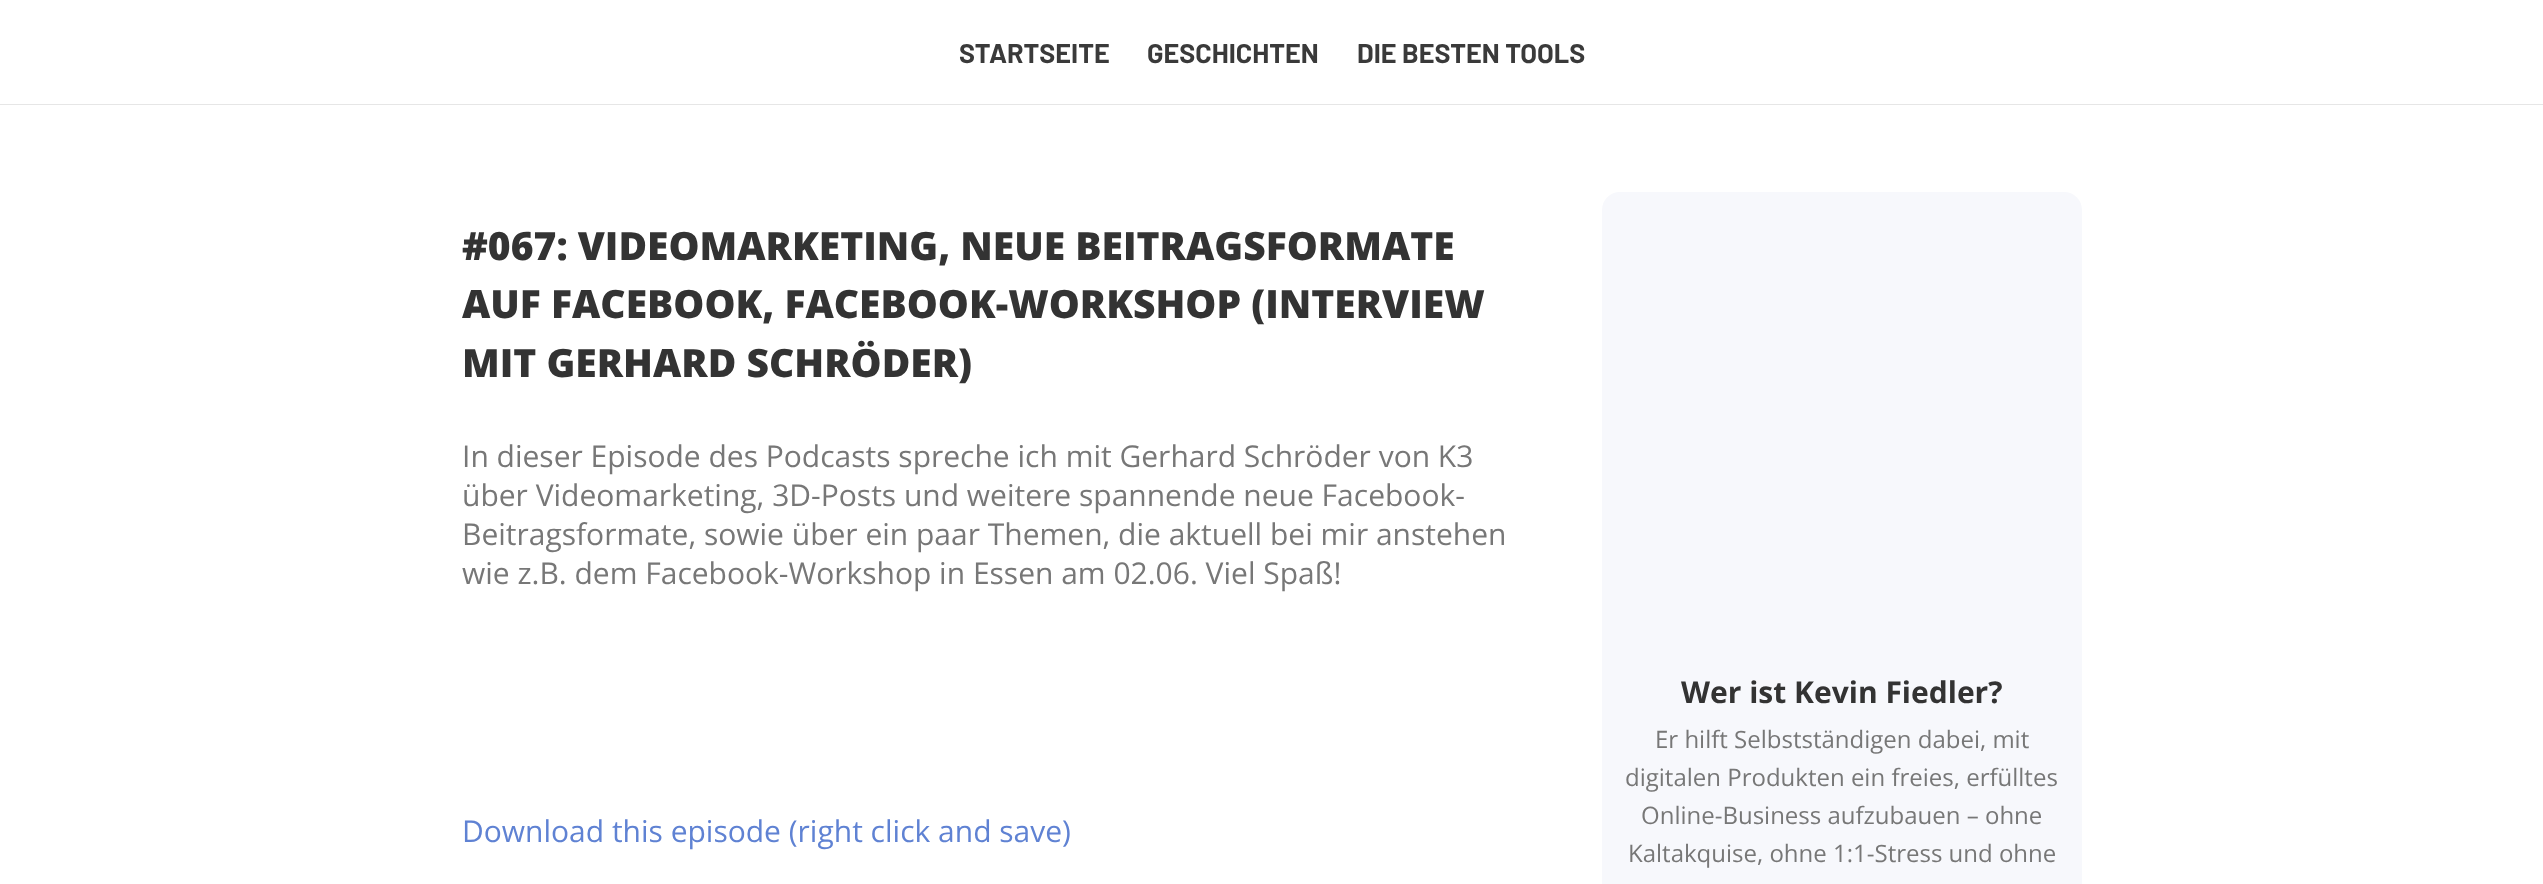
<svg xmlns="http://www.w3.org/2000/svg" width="2543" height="884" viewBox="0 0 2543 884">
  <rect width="100%" height="100%" fill="rgb(255,255,255)"/>
  <rect x="0" y="104" width="2543" height="1" fill="rgb(230,230,230)"/>
  <g font-family="Barlow" font-size="27" font-weight="bold" fill="rgb(58,58,58)">
    <text x="959" y="63">STARTSEITE</text>
    <text x="1147" y="63">GESCHICHTEN</text>
    <text x="1357" y="63">DIE BESTEN TOOLS</text>
  </g>
  <g font-family="Open Sans" font-size="39" font-weight="800" fill="rgb(51,51,51)">
    <text>
      <tspan x="462" y="260">#067: VIDEOMARKETING, NEUE BEITRAGSFORMATE</tspan>
      <tspan x="462" y="318">AUF FACEBOOK, FACEBOOK-WORKSHOP (INTERVIEW</tspan>
      <tspan x="462" y="377">MIT GERHARD SCHRÖDER)</tspan>
    </text>
  </g>
  <g font-family="Open Sans" font-size="30" fill="rgb(119,119,119)">
    <text>
      <tspan x="462" y="467">In dieser Episode des Podcasts spreche ich mit Gerhard Schröder von K3</tspan>
      <tspan x="462" y="506">über Videomarketing, 3D-Posts und weitere spannende neue Facebook-</tspan>
      <tspan x="462" y="545">Beitragsformate, sowie über ein paar Themen, die aktuell bei mir anstehen</tspan>
      <tspan x="462" y="584">wie z.B. dem Facebook-Workshop in Essen am 02.06. Viel Spaß!</tspan>
    </text>
  </g>
  <text x="462" y="842" font-family="Open Sans" font-size="30" fill="rgb(95,130,211)">Download this episode (right click and save)</text>
  <rect x="1602" y="192" width="480" height="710" rx="18" fill="rgb(247,248,252)"/>
  <text x="1681" y="703" font-family="Open Sans" font-size="30" font-weight="bold" fill="rgb(51,51,51)">Wer ist Kevin Fiedler?</text>
  <g font-family="Open Sans" font-size="24" fill="rgb(119,119,119)">
    <text x="1655" y="748">Er hilft Selbstständigen dabei, mit</text>
    <text x="1625" y="786">digitalen Produkten ein freies, erfülltes</text>
    <text x="1641" y="824">Online-Business aufzubauen – ohne</text>
    <text x="1628" y="862">Kaltakquise, ohne 1:1-Stress und ohne</text>
  </g>
</svg>
